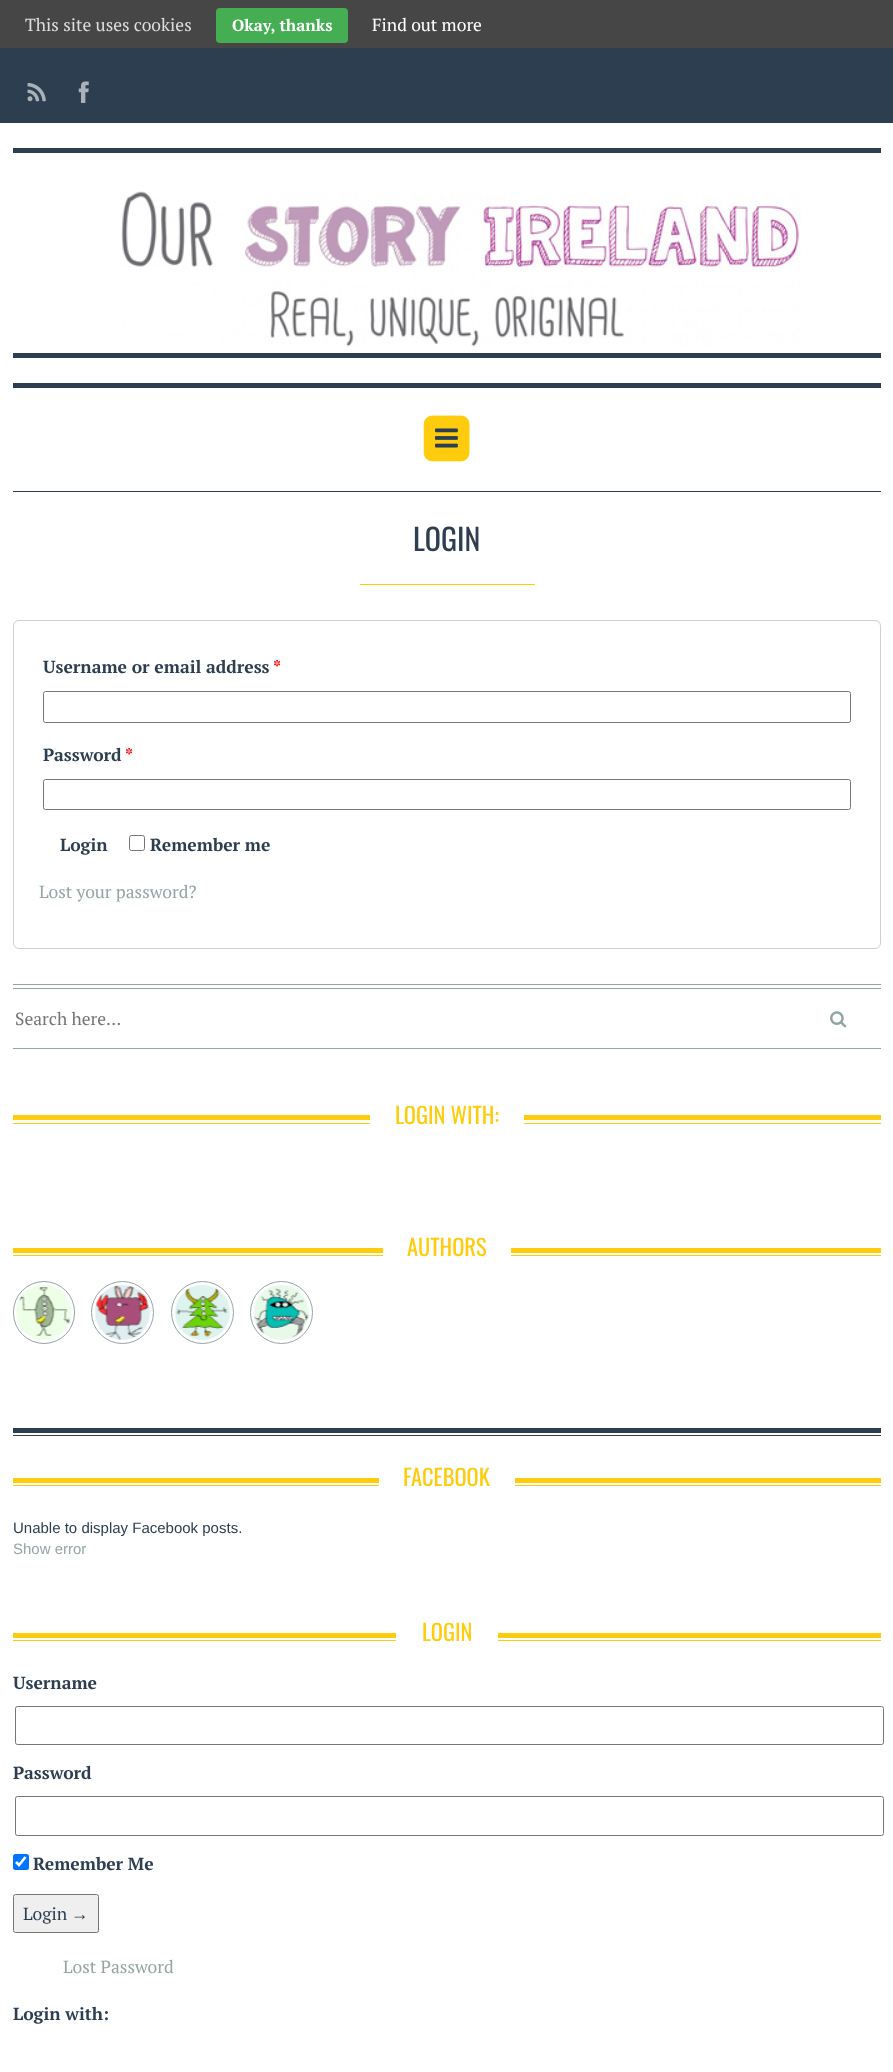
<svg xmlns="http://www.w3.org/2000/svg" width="893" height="2072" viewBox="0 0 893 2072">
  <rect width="100%" height="100%" fill="rgb(255,255,255)"/>
  <rect x="0" y="0" width="893" height="48" fill="rgb(70,70,70)"/>
  <text x="25" y="31" font-family="PT Serif" font-size="17.5" fill="rgb(221,221,221)">This site uses cookies</text>
  <rect x="216" y="8" width="132" height="35" rx="4" fill="rgb(69,174,82)"/>
  <text x="232" y="31" font-family="PT Serif" font-size="16.25" font-weight="bold" fill="rgb(255,255,255)">Okay, thanks</text>
  <text x="372" y="31" font-family="PT Serif" font-size="17.5" fill="rgb(255,255,255)">Find out more</text>
  <rect x="0" y="48" width="893" height="75" fill="rgb(44,62,80)"/>
  <image x="27" y="82" width="19" height="20" href="pic1.png"/>
  <image x="78" y="81" width="11" height="22" href="pic2.png"/>
  <rect x="13" y="148" width="868" height="5" fill="rgb(44,62,80)"/>
  <rect x="13" y="383" width="868" height="5" fill="rgb(44,62,80)"/>
  <rect x="13" y="353" width="868" height="5" fill="rgb(44,62,80)"/>
  <image x="121" y="191" width="680" height="156" href="pic3.png"/>
  <rect x="13" y="491" width="868" height="1" fill="rgb(44,62,80)"/>
  <image x="423" y="415" width="47" height="47" href="pic4.png"/>
  <image x="435" y="428" width="23" height="20" href="pic5.png"/>
  <rect x="13" y="1428" width="868" height="5" fill="rgb(44,62,80)"/>
  <text x="413" y="551" font-family="Oswald" font-size="30" fill="rgb(44,62,80)">LOGIN</text>
  <rect x="360" y="584" width="175" height="1" fill="rgb(255,204,13)"/>
  <rect x="13.5" y="620.5" width="867" height="328" rx="5.5" fill="none" stroke="rgb(211,206,210)"/>
  <text x="43" y="673" font-family="PT Serif" font-size="17.5" font-weight="bold" fill="rgb(44,62,80)">Username or email address</text>
  <text x="273" y="673" font-family="PT Serif" font-size="17.5" font-weight="bold" fill="rgb(255,0,0)">*</text>
  <rect x="43.5" y="691.5" width="807" height="31" rx="2" fill="none" stroke="rgb(118,118,118)"/>
  <text x="43" y="761" font-family="PT Serif" font-size="17.5" font-weight="bold" fill="rgb(44,62,80)">Password</text>
  <text x="125" y="761" font-family="PT Serif" font-size="17.5" font-weight="bold" fill="rgb(255,0,0)">*</text>
  <rect x="43.5" y="779.5" width="807" height="30" rx="2" fill="none" stroke="rgb(118,118,118)"/>
  <text x="60" y="851" font-family="PT Serif" font-size="17.5" font-weight="bold" fill="rgb(44,62,80)">Login</text>
  <rect x="129.5" y="835.5" width="15" height="15" rx="2" fill="none" stroke="rgb(118,118,118)"/>
  <text x="150" y="851" font-family="PT Serif" font-size="17.5" font-weight="bold" fill="rgb(44,62,80)">Remember me</text>
  <text x="39" y="898" font-family="PT Serif" font-size="17.5" fill="rgb(149,165,166)">Lost your password?</text>
  <rect x="13" y="984" width="868" height="1" fill="rgb(149,165,166)"/>
  <rect x="13" y="988" width="868" height="1" fill="rgb(149,165,166)"/>
  <rect x="13" y="1048" width="868" height="1" fill="rgb(149,165,166)"/>
  <text x="15" y="1025" font-family="PT Serif" font-size="17.5" fill="rgb(117,117,117)">Search here...</text>
  <image x="830" y="1011" width="17" height="17" href="pic6.png"/>
  <rect x="13" y="1115" width="868" height="5" fill="rgb(255,204,13)"/>
  <rect x="13" y="1123" width="868" height="1" fill="rgb(255,204,13)"/>
  <rect x="370" y="1115" width="154" height="9" fill="rgb(255,255,255)"/>
  <text x="395" y="1124" font-family="Oswald" font-size="22.5" fill="rgb(255,204,13)">LOGIN WITH:</text>
  <rect x="13" y="1248" width="868" height="5" fill="rgb(255,204,13)"/>
  <rect x="13" y="1255" width="868" height="1" fill="rgb(255,204,13)"/>
  <rect x="383" y="1248" width="128" height="8" fill="rgb(255,255,255)"/>
  <text x="407" y="1256" font-family="Oswald" font-size="22.5" fill="rgb(255,204,13)">AUTHORS</text>
  <rect x="13.5" y="1281.5" width="61" height="62" rx="30.5" fill="none" stroke="rgb(149,165,166)"/>
  <image x="16" y="1285" width="56" height="55" href="pic7.png"/>
  <circle cx="122.5" cy="1312.5" r="31" fill="none" stroke="rgb(149,165,166)"/>
  <image x="94" y="1285" width="57" height="55" href="pic8.png"/>
  <circle cx="202.5" cy="1312.5" r="31" fill="none" stroke="rgb(149,165,166)"/>
  <image x="174" y="1285" width="57" height="55" href="pic9.png"/>
  <circle cx="281.5" cy="1312.5" r="31" fill="none" stroke="rgb(149,165,166)"/>
  <image x="253" y="1285" width="56" height="55" href="pic10.png"/>
  <rect x="13" y="1435" width="868" height="1" fill="rgb(44,62,80)"/>
  <rect x="13" y="1478" width="868" height="5" fill="rgb(255,204,13)"/>
  <rect x="13" y="1485" width="868" height="1" fill="rgb(255,204,13)"/>
  <rect x="379" y="1478" width="136" height="8" fill="rgb(255,255,255)"/>
  <text x="403" y="1486" font-family="Oswald" font-size="22.5" fill="rgb(255,204,13)">FACEBOOK</text>
  <text x="13" y="1533" font-family="Liberation Sans" font-size="15" fill="rgb(44,62,80)">Unable to display Facebook posts.</text>
  <text x="13" y="1554" font-family="Liberation Sans" font-size="15" fill="rgb(149,165,166)">Show error</text>
  <rect x="13" y="1633" width="868" height="5" fill="rgb(255,204,13)"/>
  <rect x="13" y="1640" width="868" height="1" fill="rgb(255,204,13)"/>
  <rect x="396" y="1633" width="102" height="8" fill="rgb(255,255,255)"/>
  <text x="422" y="1641" font-family="Oswald" font-size="22.5" fill="rgb(255,204,13)">LOGIN</text>
  <text x="13" y="1689" font-family="PT Serif" font-size="17.5" font-weight="bold" fill="rgb(44,62,80)">Username</text>
  <rect x="15.5" y="1706.5" width="868" height="38" rx="2" fill="none" stroke="rgb(118,118,118)"/>
  <text x="13" y="1779" font-family="PT Serif" font-size="17.5" font-weight="bold" fill="rgb(44,62,80)">Password</text>
  <rect x="15.5" y="1796.5" width="868" height="39" rx="2" fill="none" stroke="rgb(118,118,118)"/>
  <rect x="13" y="1854" width="16" height="16" rx="2.5" fill="rgb(0,117,255)"/>
  <path d="M16 1862L19 1865L25.5 1857" fill="none" stroke="rgb(255,255,255)" stroke-width="2.6"/>
  <text x="33" y="1870" font-family="PT Serif" font-size="17.5" font-weight="bold" fill="rgb(44,62,80)">Remember Me</text>
  <rect x="13.5" y="1894.5" width="85" height="38" rx="2" fill="rgb(239,239,239)" stroke="rgb(118,118,118)"/>
  <text x="23" y="1920" font-family="PT Serif" font-size="17.5" fill="rgb(44,62,80)">Login</text>
  <text x="71" y="1920" font-family="Liberation Serif" font-size="17.5" fill="rgb(44,62,80)">→</text>
  <text x="63" y="1973" font-family="PT Serif" font-size="17.5" fill="rgb(149,165,166)">Lost Password</text>
  <text x="13" y="2020" font-family="PT Serif" font-size="17.5" font-weight="bold" fill="rgb(44,62,80)">Login with:</text>
</svg>
